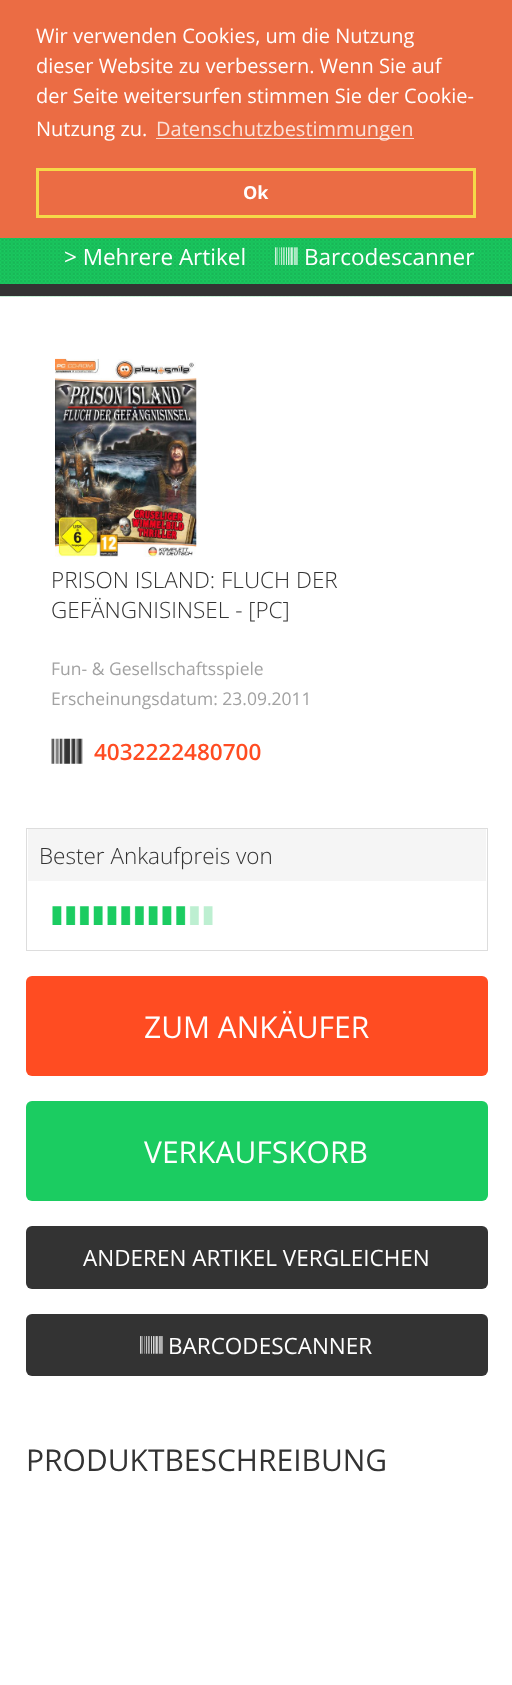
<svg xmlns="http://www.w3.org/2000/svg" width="512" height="1685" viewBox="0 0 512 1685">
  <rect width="100%" height="100%" fill="rgb(255,255,255)"/>
  <rect x="0" y="0" width="512" height="238" fill="rgb(235,108,68)"/>
  <g font-family="Open Sans" font-size="20" fill="rgb(255,255,255)">
    <text>
      <tspan x="36" y="43">Wir verwenden Cookies, um die Nutzung</tspan>
      <tspan x="36" y="73">dieser Website zu verbessern. Wenn Sie auf</tspan>
      <tspan x="36" y="103">der Seite weitersurfen stimmen Sie der Cookie-</tspan>
      <tspan x="36" y="136">Nutzung zu.</tspan>
    </text>
  </g>
  <rect x="156" y="138" width="258" height="1" fill="rgb(251,226,218)"/>
  <text x="156" y="136" font-family="Open Sans" font-size="20" fill="rgb(251,226,218)">Datenschutzbestimmungen</text>
  <rect x="37.5" y="169.5" width="437" height="47" fill="none" stroke="rgb(245,217,72)" stroke-width="3"/>
  <text x="243" y="199" font-family="Open Sans" font-size="18" font-weight="bold" fill="rgb(255,255,255)">Ok</text>
  <image x="0" y="238" width="512" height="59" href="pic1.png"/>
  <rect x="0" y="284" width="512" height="12" fill="rgb(51,51,51)"/>
  <text x="64" y="265" font-family="Open Sans" font-size="22.5" fill="rgb(255,255,255)">&gt; Mehrere Artikel</text>
  <image x="275" y="247" width="23" height="18" href="pic2.png"/>
  <text x="304" y="265" font-family="Open Sans" font-size="22.5" fill="rgb(255,255,255)">Barcodescanner</text>
  <image x="55" y="358" width="142" height="199" href="pic3.png"/>
  <g font-family="Open Sans" font-size="22.5" font-weight="300" fill="rgb(51,51,51)">
    <text>
      <tspan x="51" y="588">PRISON ISLAND: FLUCH DER</tspan>
      <tspan x="51" y="618">GEFÄNGNISINSEL - [PC]</tspan>
    </text>
  </g>
  <g font-family="Open Sans" font-size="17.5" fill="rgb(162,162,162)">
    <text>
      <tspan x="51" y="675">Fun- &amp; Gesellschaftsspiele</tspan>
      <tspan x="51" y="705">Erscheinungsdatum: 23.09.2011</tspan>
    </text>
  </g>
  <image x="51" y="738" width="32" height="26" href="pic4.png"/>
  <text x="94" y="760" font-family="Open Sans" font-size="22.5" font-weight="600" fill="rgb(255,76,34)">4032222480700</text>
  <rect x="26.5" y="828.5" width="461" height="122" fill="none" stroke="rgb(221,221,221)"/>
  <rect x="28" y="829" width="458" height="52" fill="rgb(245,245,245)"/>
  <text x="39" y="864" font-family="Open Sans" font-size="22.5" font-weight="300" fill="rgb(51,51,51)">Bester Ankaufpreis von</text>
  <image x="52" y="906" width="161" height="19" href="pic5.png"/>
  <rect x="26" y="976" width="462" height="100" rx="6" fill="rgb(255,76,34)"/>
  <text x="144" y="1038" font-family="Open Sans" font-size="30" fill="rgb(255,255,255)">ZUM ANKÄUFER</text>
  <rect x="26" y="1101" width="462" height="100" rx="6" fill="rgb(27,204,97)"/>
  <text x="144" y="1163" font-family="Open Sans" font-size="30" fill="rgb(255,255,255)">VERKAUFSKORB</text>
  <rect x="26" y="1226" width="462" height="63" rx="6" fill="rgb(51,51,51)"/>
  <text x="83" y="1266" font-family="Open Sans" font-size="22.5" fill="rgb(255,255,255)">ANDEREN ARTIKEL VERGLEICHEN</text>
  <rect x="26" y="1314" width="462" height="62" rx="6" fill="rgb(51,51,51)"/>
  <image x="140" y="1336" width="23" height="18" href="pic6.png"/>
  <text x="168" y="1354" font-family="Open Sans" font-size="22.5" fill="rgb(255,255,255)">BARCODESCANNER</text>
  <text x="26" y="1471" font-family="Open Sans" font-size="30" fill="rgb(51,51,51)">PRODUKTBESCHREIBUNG</text>
</svg>
